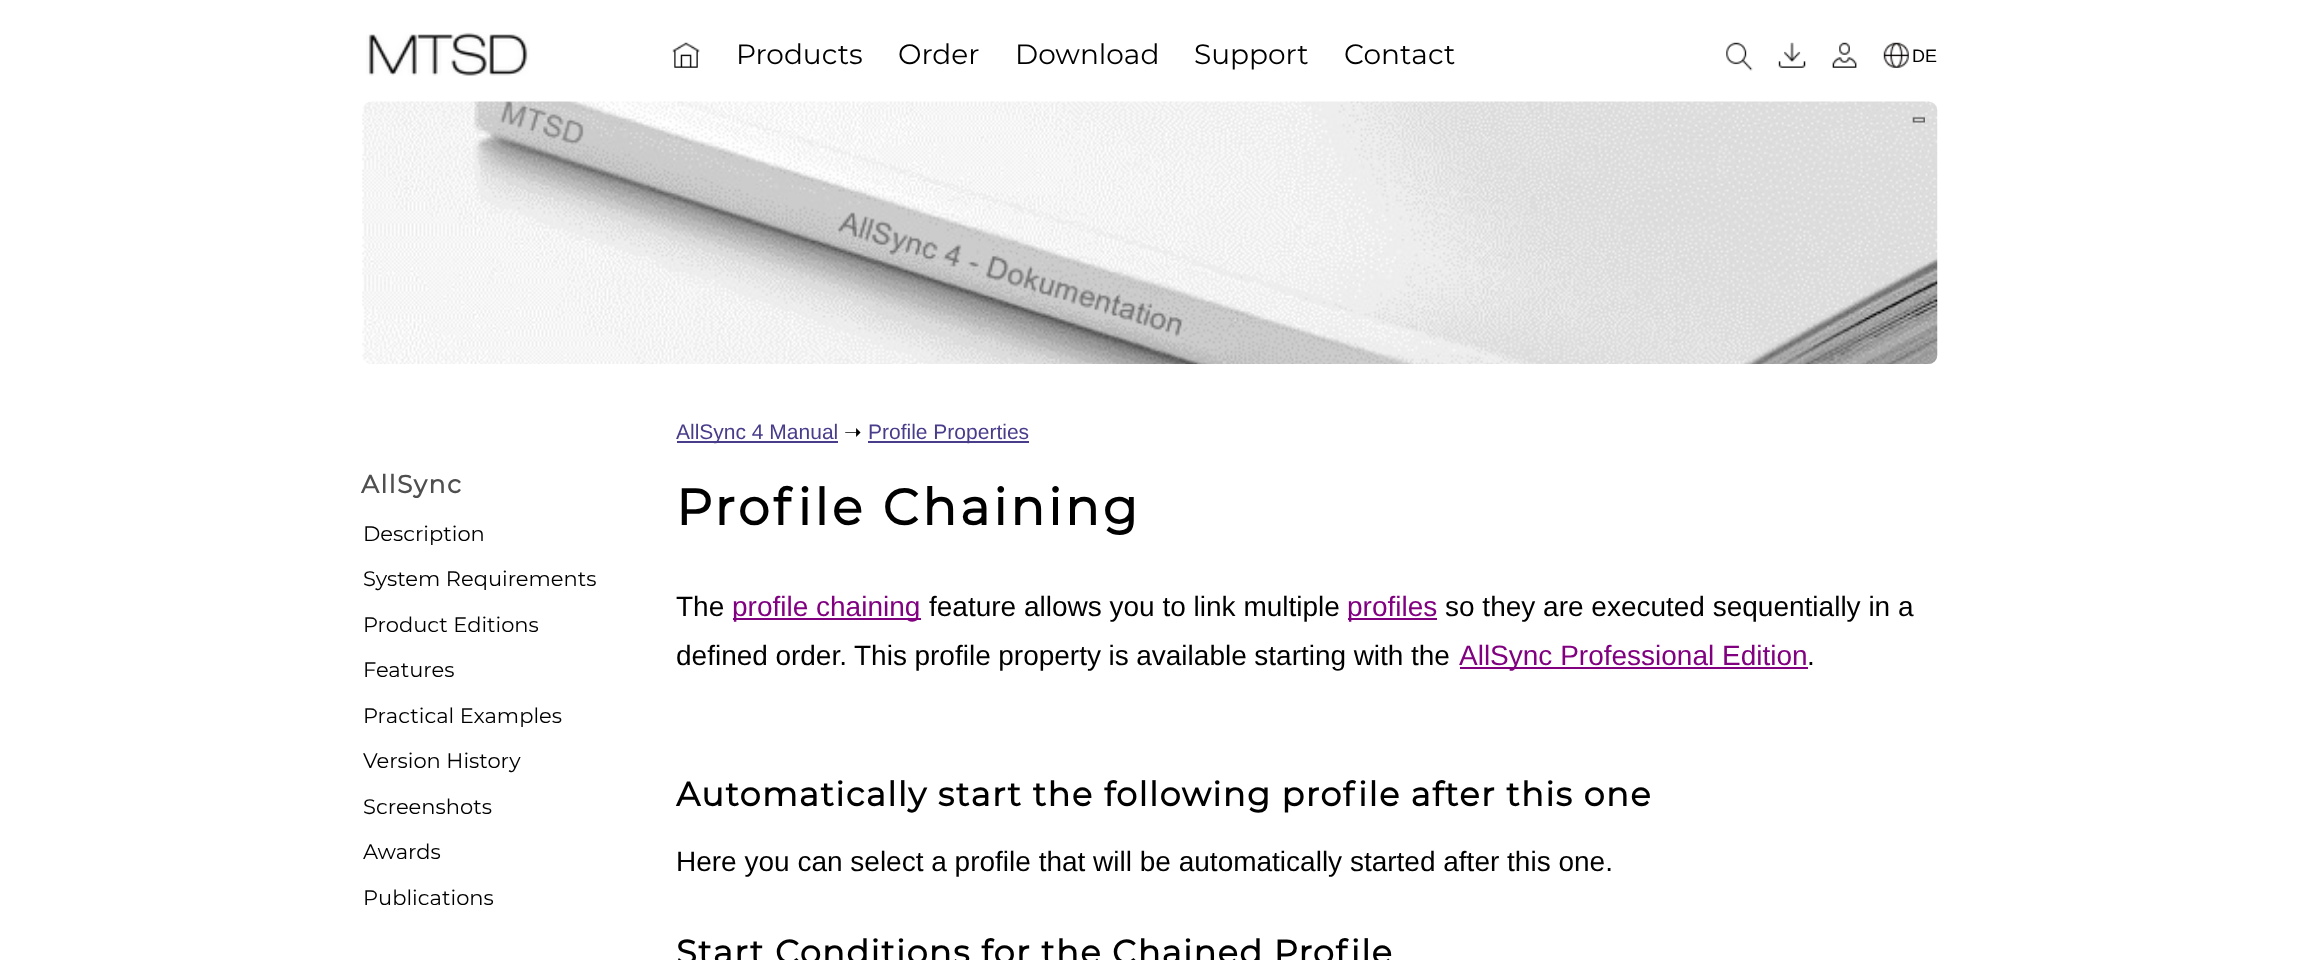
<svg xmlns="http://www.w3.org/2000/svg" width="2297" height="960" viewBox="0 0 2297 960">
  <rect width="100%" height="100%" fill="rgb(255,255,255)"/>
  <image x="366" y="32" width="164" height="44" href="pic1.png"/>
  <image x="672" y="42" width="28" height="26" href="pic2.png"/>
  <g font-family="Montserrat" font-size="28" fill="rgb(0,0,0)">
    <text x="736" y="64">Products</text>
    <text x="898" y="64">Order</text>
    <text x="1015" y="64">Download</text>
    <text x="1194" y="64">Support</text>
    <text x="1344" y="64">Contact</text>
  </g>
  <image x="1726" y="42" width="27" height="29" href="pic3.png"/>
  <image x="1778" y="42" width="28" height="26" href="pic4.png"/>
  <image x="1832" y="42" width="25" height="26" href="pic5.png"/>
  <image x="1883" y="42" width="26" height="26" href="pic6.png"/>
  <text x="1912" y="62" font-family="Liberation Sans" font-size="18" fill="rgb(0,0,0)">DE</text>
  <image x="362" y="101" width="1576" height="263" href="pic7.png"/>
  <image x="1912" y="116" width="13" height="7" href="pic8.png"/>
  <text x="361" y="493" font-family="Montserrat" font-size="25" font-weight="bold" letter-spacing="1.5" fill="rgb(79,79,79)">AllSync</text>
  <g font-family="Montserrat" font-size="21" fill="rgb(0,0,0)">
    <text x="363" y="541">Description</text>
    <text x="363" y="586">System Requirements</text>
    <text x="363" y="632">Product Editions</text>
    <text x="363" y="677">Features</text>
    <text x="363" y="723">Practical Examples</text>
    <text x="363" y="768">Version History</text>
    <text x="363" y="814">Screenshots</text>
    <text x="363" y="859">Awards</text>
    <text x="363" y="905">Publications</text>
  </g>
  <rect x="677" y="441" width="161" height="2" fill="rgb(72,61,139)"/>
  <text x="676" y="439" font-family="Liberation Sans" font-size="21" fill="rgb(72,61,139)">AllSync 4 Manual</text>
  <text x="844" y="439" font-family="DejaVu Sans" font-size="21" fill="rgb(0,0,0)">➝</text>
  <rect x="868" y="441" width="161" height="2" fill="rgb(72,61,139)"/>
  <text x="868" y="439" font-family="Liberation Sans" font-size="21" fill="rgb(72,61,139)">Profile Properties</text>
  <text x="676" y="525" font-family="Montserrat" font-size="50.5" font-weight="bold" letter-spacing="3.5" fill="rgb(0,0,0)">Profile Chaining</text>
  <text x="676" y="616" font-family="Liberation Sans" font-size="28" fill="rgb(0,0,0)">The</text>
  <rect x="733" y="618" width="188" height="2" fill="rgb(128,0,128)"/>
  <text x="732" y="616" font-family="Liberation Sans" font-size="28" fill="rgb(128,0,128)">profile chaining</text>
  <text x="929" y="616" font-family="Liberation Sans" font-size="28" fill="rgb(0,0,0)">feature allows you to link multiple</text>
  <rect x="1348" y="618" width="89" height="2" fill="rgb(128,0,128)"/>
  <text x="1347" y="616" font-family="Liberation Sans" font-size="28" fill="rgb(128,0,128)">profiles</text>
  <g font-family="Liberation Sans" font-size="28" fill="rgb(0,0,0)">
    <text x="1445" y="616">so they are executed sequentially in a</text>
    <text x="676" y="665" word-spacing="-0.25">defined order. This profile property is available starting with the</text>
  </g>
  <rect x="1460" y="667" width="348" height="2" fill="rgb(128,0,128)"/>
  <text x="1459" y="665" font-family="Liberation Sans" font-size="28" fill="rgb(128,0,128)">AllSync Professional Edition</text>
  <text x="1807" y="665" font-family="Liberation Sans" font-size="28" fill="rgb(0,0,0)">.</text>
  <text x="676" y="806" font-family="Montserrat" font-size="33.6" font-weight="bold" letter-spacing="1.4" fill="rgb(0,0,0)">Automatically start the following profile after this one</text>
  <text x="676" y="871" font-family="Liberation Sans" font-size="28" fill="rgb(0,0,0)">Here you can select a profile that will be automatically started after this one.</text>
  <text x="676" y="964" font-family="Montserrat" font-size="33.6" font-weight="bold" letter-spacing="1.4" fill="rgb(0,0,0)">Start Conditions for the Chained Profile</text>
</svg>
